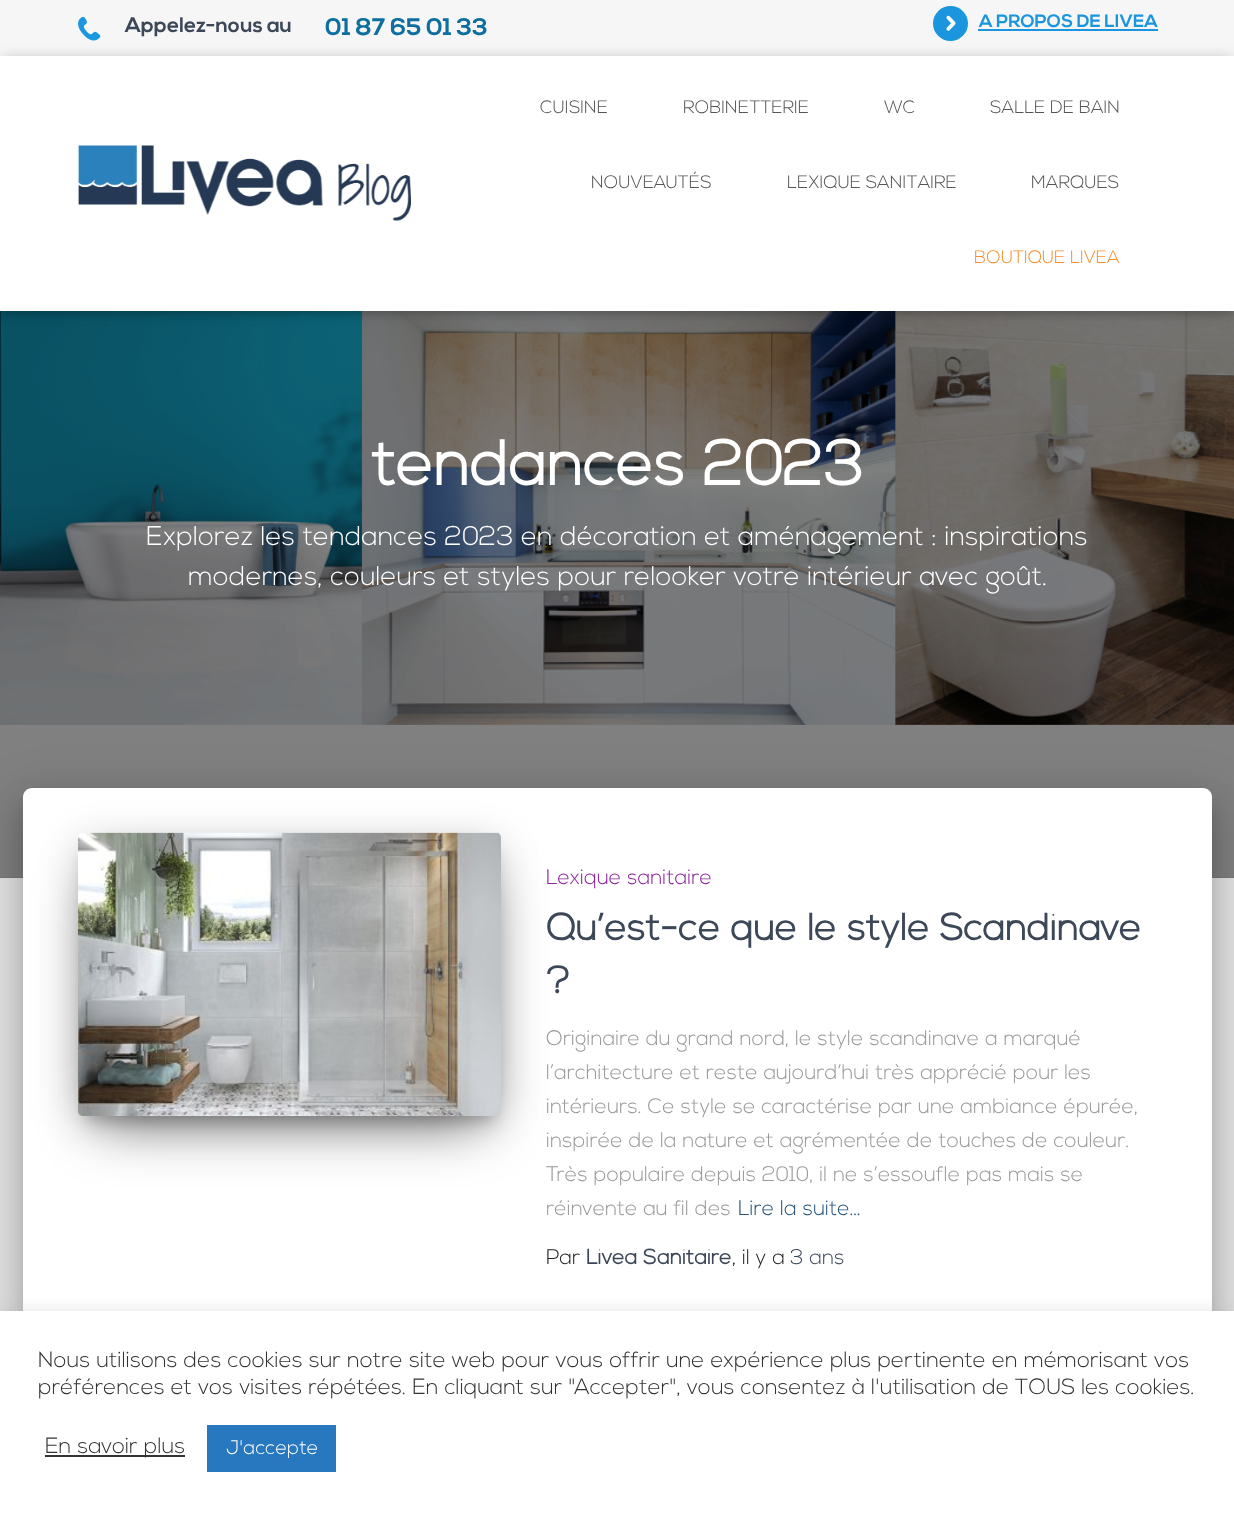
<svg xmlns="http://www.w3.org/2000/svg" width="1234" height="1516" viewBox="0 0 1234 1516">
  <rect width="100%" height="100%" fill="rgb(229,229,229)"/>
  <rect x="0" y="877" width="1234" height="1" fill="rgb(115,115,115)"/>
  <rect x="0" y="0" width="1234" height="56" fill="rgb(246,246,246)"/>
  <image x="78" y="17" width="23" height="24" href="pic1.png"/>
  <text x="125" y="32" font-family="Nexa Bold" font-size="21" font-weight="bold" fill="rgb(60,72,88)">Appelez-nous au</text>
  <text x="325" y="35" font-family="Nexa Bold" font-size="24" font-weight="bold" fill="rgb(13,110,159)">01 87 65 01 33</text>
  <circle cx="950.5" cy="23.5" r="17.5" fill="rgb(27,150,222)"/>
  <image x="946" y="15" width="10" height="16" href="pic2.png"/>
  <text x="979" y="27" font-family="Nexa Bold" font-size="18" font-weight="bold" fill="rgb(27,150,222)">A PROPOS DE LIVEA</text>
  <rect x="978" y="29" width="180" height="2" fill="rgb(27,150,222)"/>
  <image x="0" y="311" width="1234" height="567" href="pic4.png"/>
  <rect x="3" y="65" width="1229" height="249" fill="rgba(0,0,0,0.1)" filter="blur(4px)"/>
  <rect x="0" y="57" width="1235" height="255" fill="rgba(0,0,0,0.12)" filter="blur(7.5px)"/>
  <rect x="9" y="66" width="1217" height="237" fill="rgba(0,0,0,0.42)" filter="blur(7.5px)"/>
  <rect x="0" y="56" width="1234" height="255" fill="rgb(255,255,255)"/>
  <image x="77" y="145" width="334" height="76" href="pic3.png"/>
  <g font-family="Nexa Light" font-size="18" font-weight="300" fill="rgb(85,85,85)">
    <text x="540" y="113">CUISINE</text>
    <text x="683" y="113">ROBINETTERIE</text>
    <text x="884" y="113">WC</text>
    <text x="990" y="113">SALLE DE BAIN</text>
    <text x="591" y="188">NOUVEAUTÉS</text>
    <text x="787" y="188">LEXIQUE SANITAIRE</text>
    <text x="1031" y="188">MARQUES</text>
  </g>
  <text x="974" y="263" font-family="Nexa Light" font-size="18" font-weight="300" fill="rgb(247,141,45)">BOUTIQUE LIVEA</text>
  <text x="371" y="485" font-family="Nexa Light" font-size="63" font-weight="bold" fill="rgb(255,255,255)">tendances 2023</text>
  <g font-family="Nexa Light" font-size="27" font-weight="300" fill="rgb(255,255,255)">
    <text x="146" y="545">Explorez les tendances 2023 en décoration et aménagement : inspirations</text>
    <text x="188" y="585">modernes, couleurs et styles pour relooker votre intérieur avec goût.</text>
  </g>
  <rect x="30" y="807" width="1175" height="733" rx="1.5" fill="rgba(0,0,0,0.2)" filter="blur(7.5px)"/>
  <rect x="15" y="789" width="1205" height="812" rx="17" fill="rgba(0,0,0,0.12)" filter="blur(22.5px)"/>
  <rect x="20" y="809" width="1195" height="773" rx="12" fill="rgba(0,0,0,0.14)" filter="blur(18px)"/>
  <path d="M32 788H1203C1208 788 1212 792 1212 797V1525H23V797C23 792 27 788 32 788Z" fill="rgb(255,255,255)"/>
  <rect x="86" y="852" width="408" height="269" fill="rgba(0,0,0,0.2)" filter="blur(7.5px)"/>
  <rect x="78" y="839" width="423" height="283" rx="5" fill="rgba(0,0,0,0.12)" filter="blur(19px)"/>
  <rect x="96" y="875" width="387" height="247" fill="rgba(0,0,0,0.56)" filter="blur(28.5px)"/>
  <image x="78" y="832" width="423" height="284" href="pic5.png"/>
  <text x="546" y="884" font-family="Nexa Light" font-size="21" font-weight="300" fill="rgb(137,34,155)">Lexique sanitaire</text>
  <g font-family="Nexa Light" font-size="37.5" font-weight="bold" fill="rgb(60,72,88)">
    <text>
      <tspan x="546" y="940">Qu’est-ce que le style Scandinave</tspan>
      <tspan x="546" y="993">?</tspan>
    </text>
  </g>
  <g font-family="Nexa Light" font-size="21" font-weight="300" fill="rgb(153,153,153)">
    <text>
      <tspan x="546" y="1045">Originaire du grand nord, le style scandinave a marqué</tspan>
      <tspan x="546" y="1079">l’architecture et reste aujourd’hui très apprécié pour les</tspan>
      <tspan x="546" y="1113">intérieurs. Ce style se caractérise par une ambiance épurée,</tspan>
      <tspan x="546" y="1147">inspirée de la nature et agrémentée de touches de couleur.</tspan>
      <tspan x="546" y="1181">Très populaire depuis 2010, il ne s’essoufle pas mais se</tspan>
      <tspan x="546" y="1215">réinvente au fil des</tspan>
    </text>
  </g>
  <text x="738" y="1215" font-family="Nexa Light" font-size="21" font-weight="300" fill="rgb(35,82,124)">Lire la suite…</text>
  <text x="546" y="1264" font-family="Nexa Light" font-size="21" font-weight="300" fill="rgb(33,33,33)">Par</text>
  <text x="586" y="1264" font-family="Nexa Light" font-size="21" font-weight="bold" fill="rgb(60,72,88)">Livea Sanitaire</text>
  <text x="732" y="1264" font-family="Nexa Light" font-size="21" font-weight="300" fill="rgb(33,33,33)">, il y a</text>
  <text x="790" y="1264" font-family="Nexa Light" font-size="21" font-weight="300" fill="rgb(60,72,88)">3 ans</text>
  <rect x="0" y="1310" width="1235" height="205" fill="rgba(172,171,171,0.3)" filter="blur(7.5px)"/>
  <rect x="0" y="1311" width="1234" height="205" fill="rgb(255,255,255)"/>
  <g font-family="Nexa Light" font-size="22" font-weight="300" fill="rgb(51,51,51)">
    <text>
      <tspan x="38" y="1367">Nous utilisons des cookies sur notre site web pour vous offrir une expérience plus pertinente en mémorisant vos</tspan>
      <tspan x="38" y="1394">préférences et vos visites répétées. En cliquant sur "Accepter", vous consentez à l'utilisation de TOUS les cookies.</tspan>
    </text>
  </g>
  <rect x="45" y="1455" width="140" height="2" fill="rgb(51,51,51)"/>
  <text x="45" y="1453" font-family="Nexa Light" font-size="22" font-weight="300" fill="rgb(51,51,51)">En savoir plus</text>
  <rect x="207" y="1425" width="129" height="47" fill="rgb(40,120,191)"/>
  <text x="226" y="1454" font-family="Nexa Light" font-size="19.5" font-weight="300" fill="rgb(255,255,255)">J'accepte</text>
</svg>
